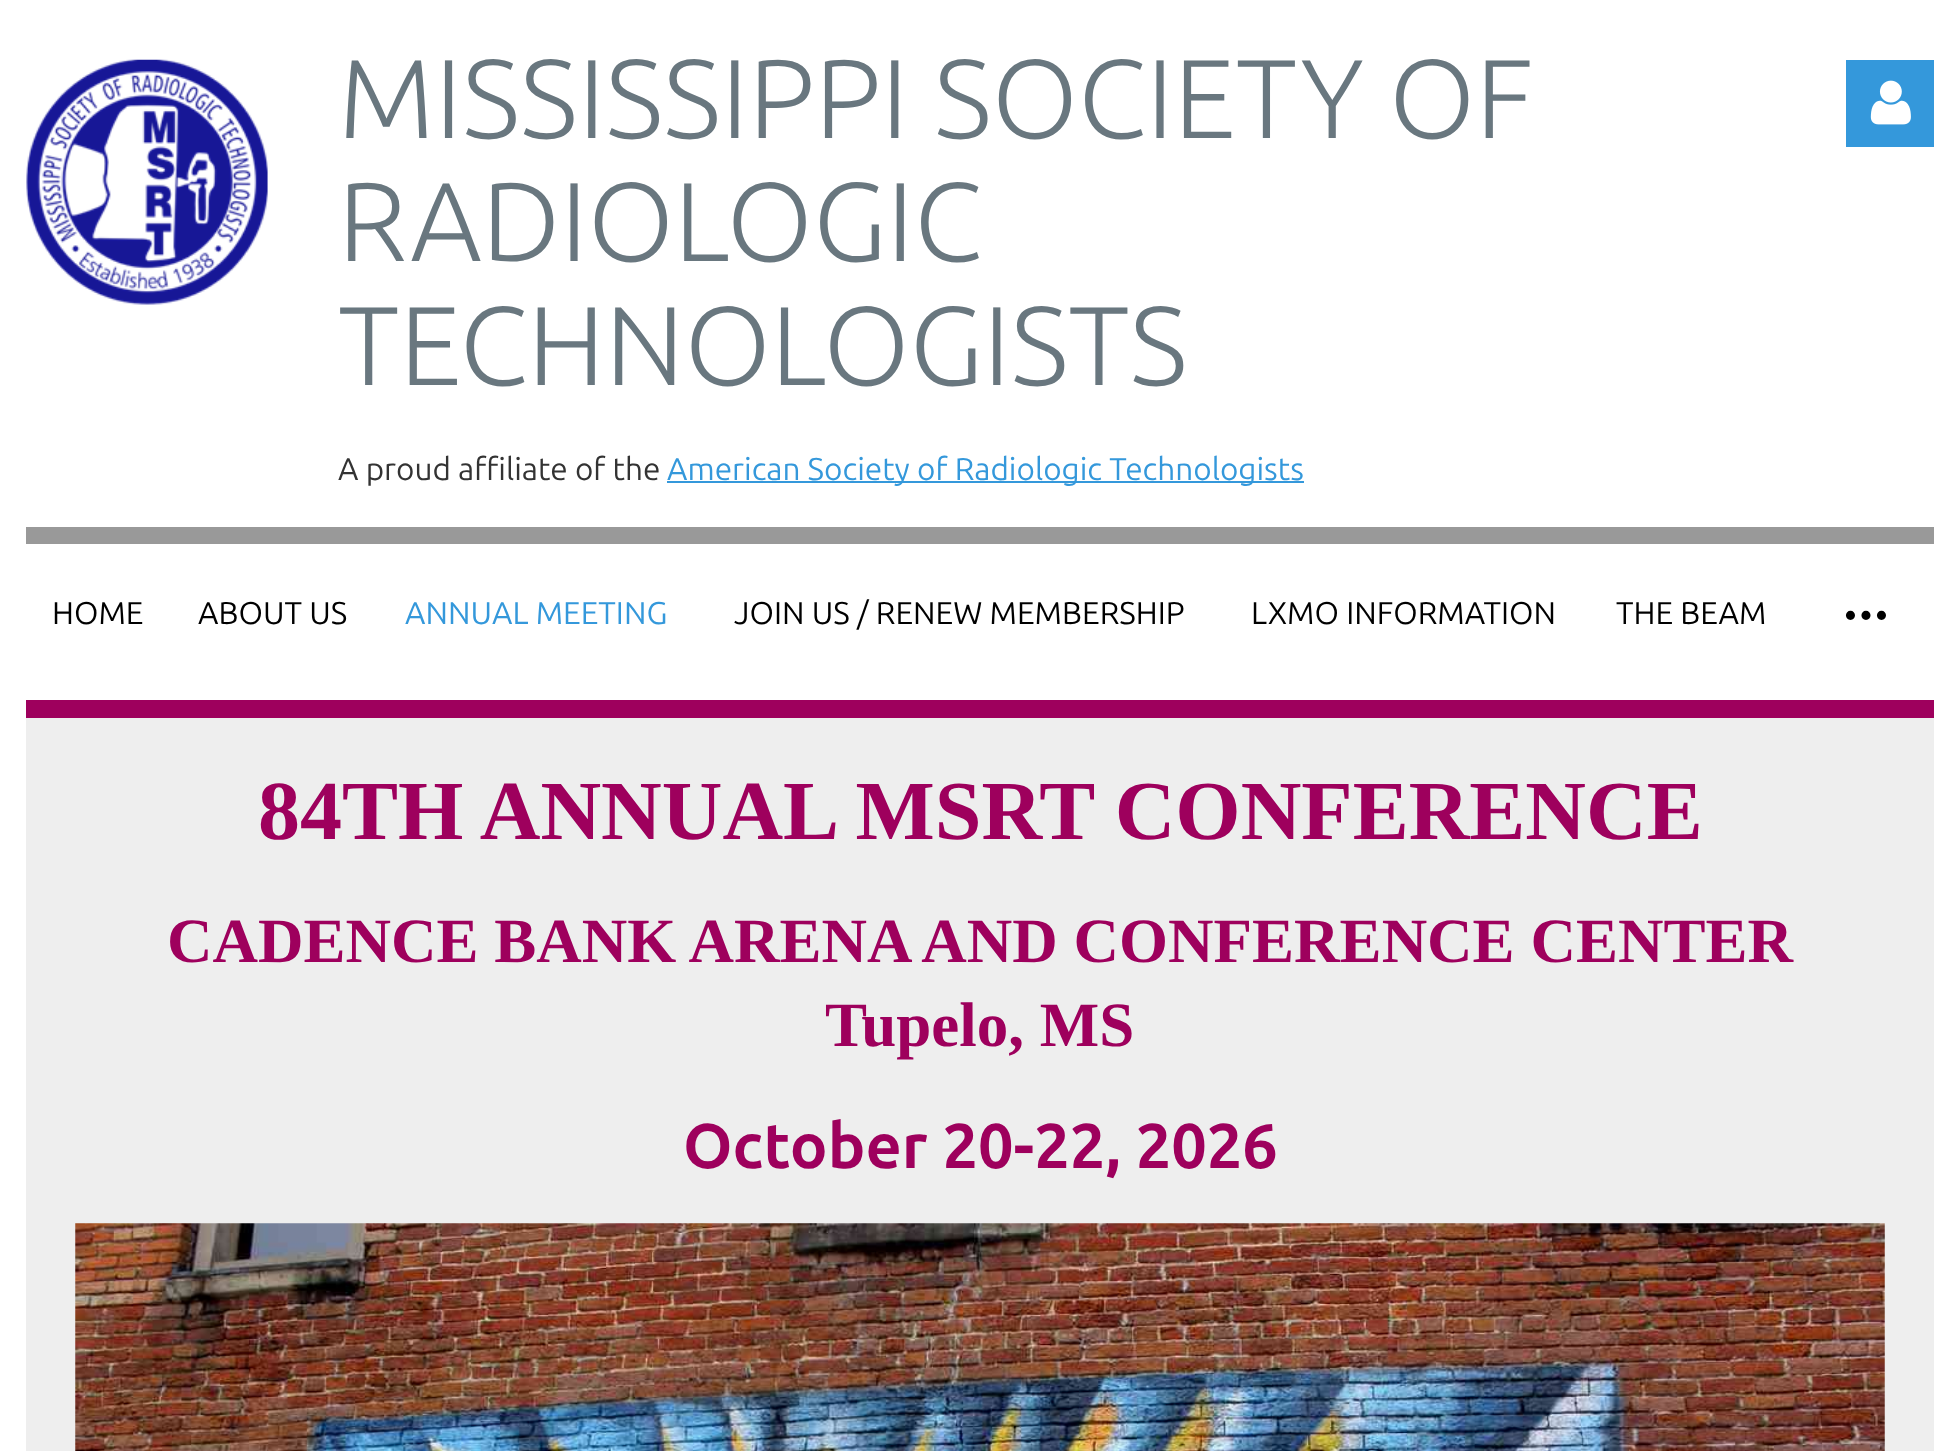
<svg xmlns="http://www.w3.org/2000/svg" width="1959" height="1451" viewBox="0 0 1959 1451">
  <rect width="100%" height="100%" fill="rgb(255,255,255)"/>
  <image x="26" y="59" width="242" height="246" href="pic1.png"/>
  <g font-family="Ubuntu" font-size="112" font-weight="300" fill="rgb(105,119,127)">
    <text>
      <tspan x="338" y="138">MISSISSIPPI SOCIETY OF</tspan>
      <tspan x="338" y="261">RADIOLOGIC</tspan>
      <tspan x="338" y="385">TECHNOLOGISTS</tspan>
    </text>
  </g>
  <text x="338" y="480" font-family="Ubuntu" font-size="31.5" fill="rgb(51,51,51)">A proud affiliate of the</text>
  <rect x="667" y="481" width="637" height="2" fill="rgb(52,152,219)"/>
  <text x="667" y="480" font-family="Ubuntu" font-size="31.5" fill="rgb(52,152,219)">American Society of Radiologic Technologists</text>
  <rect x="1846" y="60" width="88" height="87" fill="rgb(52,152,219)"/>
  <image x="1870" y="80" width="41" height="45" href="pic2.png"/>
  <rect x="26" y="527" width="1908" height="17" fill="rgb(153,153,153)"/>
  <g font-family="Ubuntu" font-size="31.5" fill="rgb(0,0,0)">
    <text x="52" y="624">HOME</text>
    <text x="198" y="624">ABOUT US</text>
  </g>
  <text x="405" y="624" font-family="Ubuntu" font-size="31.5" fill="rgb(52,152,219)">ANNUAL MEETING</text>
  <g font-family="Ubuntu" font-size="31.5" fill="rgb(0,0,0)">
    <text x="734" y="624">JOIN US / RENEW MEMBERSHIP</text>
    <text x="1251" y="624">LXMO INFORMATION</text>
    <text x="1616" y="624">THE BEAM</text>
  </g>
  <text x="1841" y="638" font-family="Ubuntu" font-size="77" letter-spacing="-3.5" fill="rgb(0,0,0)">···</text>
  <rect x="26" y="718" width="1908" height="733" fill="rgb(238,238,238)"/>
  <rect x="26" y="700" width="1908" height="18" fill="rgb(158,0,93)"/>
  <text x="258" y="839" font-family="Liberation Serif" font-size="84" font-weight="bold" fill="rgb(158,0,93)">84TH ANNUAL MSRT CONFERENCE</text>
  <g font-family="Liberation Serif" font-size="63" font-weight="bold" fill="rgb(158,0,93)">
    <text x="167" y="962">CADENCE BANK ARENA AND CONFERENCE CENTER</text>
    <text x="825" y="1046">Tupelo, MS</text>
  </g>
  <text x="683" y="1168" font-family="Ubuntu" font-size="63" font-weight="bold" fill="rgb(158,0,93)">October 20-22, 2026</text>
  <image x="75" y="1223" width="1810" height="228" href="pic3.png"/>
</svg>
